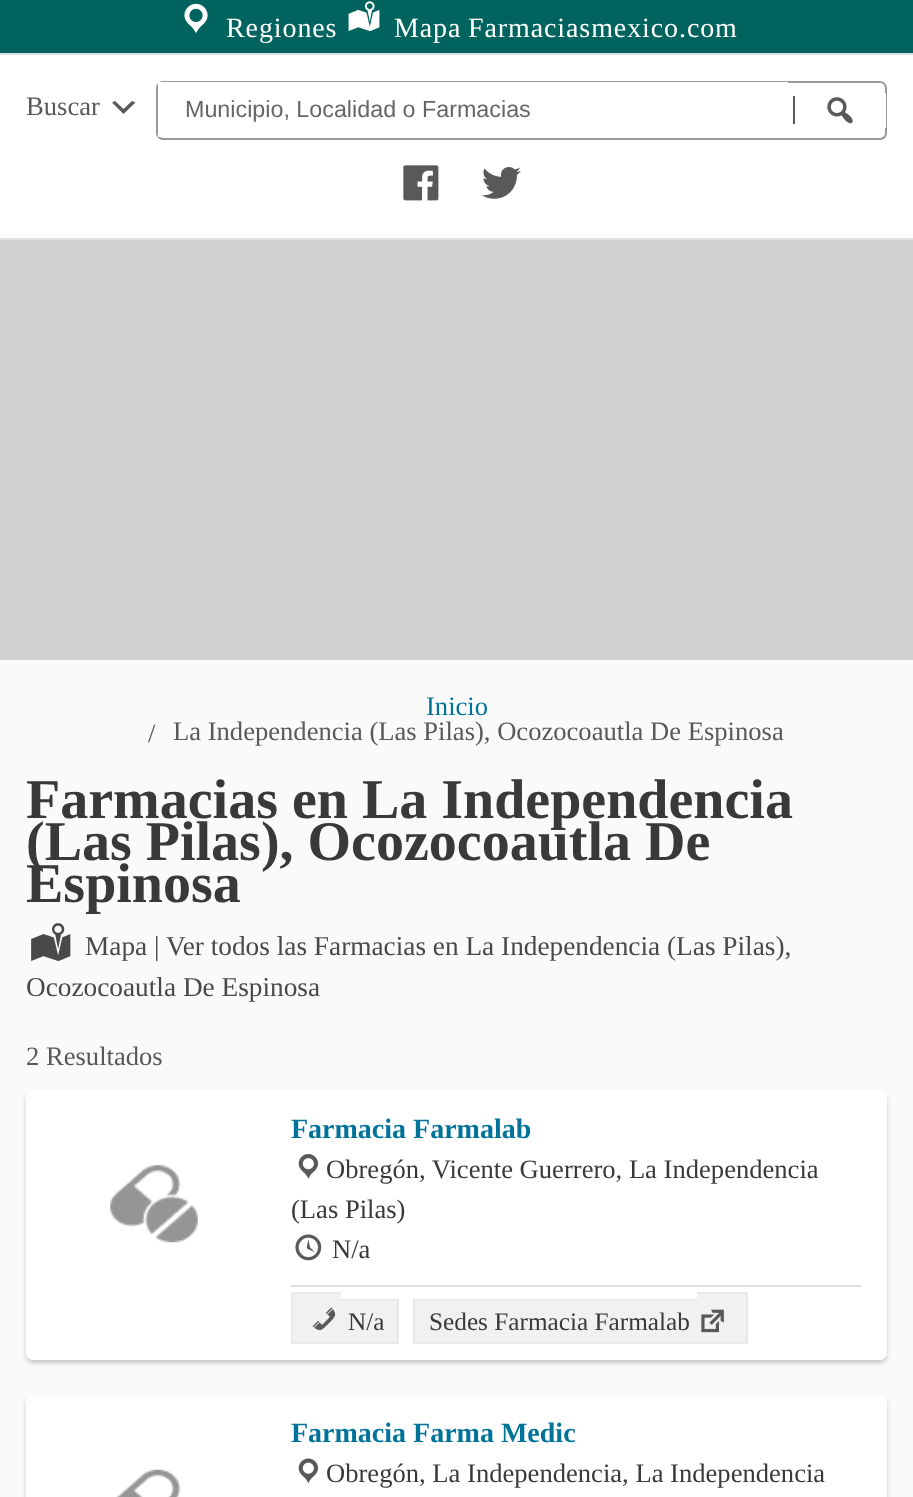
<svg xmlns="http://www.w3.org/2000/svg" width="913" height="1497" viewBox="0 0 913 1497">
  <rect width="100%" height="100%" fill="rgb(250,250,250)"/>
  <rect x="0" y="0" width="913" height="53" fill="rgb(0,99,93)"/>
  <image x="184" y="3" width="24" height="31" href="pic1.png"/>
  <text x="226" y="37" font-family="Liberation Serif" font-size="28" letter-spacing="0.9" fill="rgb(255,255,255)">Regiones</text>
  <image x="348" y="1" width="32" height="31" href="pic2.png"/>
  <g font-family="Liberation Serif" font-size="28" letter-spacing="0.9" fill="rgb(255,255,255)">
    <text x="394" y="37">Mapa</text>
    <text x="468" y="37">Farmaciasmexico.com</text>
  </g>
  <rect x="0" y="55" width="913" height="183" fill="rgb(255,255,255)"/>
  <rect x="0" y="53" width="913" height="2" fill="rgb(225,225,225)"/>
  <rect x="0" y="238" width="913" height="2" fill="rgb(225,225,225)"/>
  <text x="26" y="115" font-family="Liberation Serif" font-size="26.6" fill="rgb(89,89,89)">Buscar</text>
  <path d="M115 101L123.5 109L132 101L135.5 102.5L123.5 114L112 102.5Z" fill="rgb(89,89,89)"/>
  <rect x="157" y="82" width="729" height="57" rx="6" fill="none" stroke="rgb(153,153,153)" stroke-width="2"/>
  <rect x="158" y="82" width="630" height="55" fill="rgb(255,255,255)"/>
  <text x="185" y="117" font-family="Liberation Sans" font-size="23.3" fill="rgb(102,102,102)">Municipio, Localidad o Farmacias</text>
  <rect x="793" y="96" width="2" height="28" fill="rgb(89,89,89)"/>
  <rect x="885" y="93" width="1" height="35" fill="rgb(255,255,255)"/>
  <image x="827" y="97" width="26" height="27" href="pic3.png"/>
  <image x="403" y="165" width="36" height="36" href="pic4.png"/>
  <image x="482" y="167" width="39" height="32" href="pic5.png"/>
  <rect x="0" y="240" width="913" height="420" fill="rgb(209,209,209)"/>
  <text x="426" y="715" font-family="Liberation Serif" font-size="26.6" fill="rgb(0,115,153)">Inicio</text>
  <g font-family="Liberation Serif" font-size="26.6" fill="rgb(89,89,89)">
    <text x="148" y="742">/</text>
    <text x="173" y="740">La Independencia (Las Pilas), Ocozocoautla De Espinosa</text>
  </g>
  <g font-family="Liberation Serif" font-size="56" font-weight="bold" fill="rgb(57,57,57)">
    <text>
      <tspan x="26" y="818">Farmacias en La Independencia</tspan>
      <tspan x="26" y="860">(Las Pilas), Ocozocoautla De</tspan>
      <tspan x="26" y="902">Espinosa</tspan>
    </text>
  </g>
  <image x="31" y="923" width="40" height="39" href="pic6.png"/>
  <g font-family="Liberation Serif" font-size="27.3" fill="rgb(73,73,73)">
    <text x="85" y="955">Mapa |</text>
    <text x="166" y="955">Ver todos las Farmacias en La Independencia (Las Pilas),</text>
    <text x="26" y="996">Ocozocoautla De Espinosa</text>
  </g>
  <text x="26" y="1065" font-family="Liberation Serif" font-size="26.6" fill="rgb(89,89,89)">2 Resultados</text>
  <rect x="26" y="1094" width="861" height="269" rx="7" fill="rgba(0,0,0,0.2)" filter="blur(2px)"/>
  <rect x="26" y="1090" width="861" height="270" rx="7" fill="rgb(255,255,255)"/>
  <image x="110" y="1165" width="88" height="78" href="pic7.png"/>
  <text x="291" y="1138" font-family="Liberation Serif" font-size="28" font-weight="bold" fill="rgb(0,115,153)">Farmacia Farmalab</text>
  <image x="298" y="1154" width="20" height="25" href="pic8.png"/>
  <g font-family="Liberation Serif" font-size="26.6" fill="rgb(57,57,57)">
    <text x="326" y="1178">Obregón, Vicente Guerrero, La Independencia</text>
    <text x="291" y="1218">(Las Pilas)</text>
  </g>
  <image x="295" y="1234" width="27" height="27" href="pic9.png"/>
  <text x="332" y="1258" font-family="Liberation Serif" font-size="26.6" fill="rgb(57,57,57)">N/a</text>
  <rect x="291" y="1285" width="570" height="2" fill="rgb(225,225,225)"/>
  <rect x="293" y="1294" width="48" height="48" fill="rgb(241,241,241)"/>
  <rect x="291" y="1292" width="50" height="2" fill="rgb(233,233,233)"/>
  <rect x="291" y="1342" width="50" height="2" fill="rgb(233,233,233)"/>
  <rect x="291" y="1292" width="2" height="52" fill="rgb(233,233,233)"/>
  <rect x="341" y="1301" width="56" height="41" fill="rgb(241,241,241)"/>
  <rect x="341" y="1299" width="58" height="2" fill="rgb(233,233,233)"/>
  <rect x="397" y="1299" width="2" height="45" fill="rgb(233,233,233)"/>
  <rect x="341" y="1342" width="58" height="2" fill="rgb(233,233,233)"/>
  <image x="312" y="1307" width="24" height="23" href="pic10.png"/>
  <text x="348" y="1330" font-family="Liberation Serif" font-size="25.25" fill="rgb(57,57,57)">N/a</text>
  <rect x="415" y="1301" width="282" height="41" fill="rgb(241,241,241)"/>
  <rect x="413" y="1299" width="284" height="2" fill="rgb(233,233,233)"/>
  <rect x="413" y="1342" width="284" height="2" fill="rgb(233,233,233)"/>
  <rect x="413" y="1299" width="2" height="45" fill="rgb(233,233,233)"/>
  <rect x="697" y="1294" width="49" height="48" fill="rgb(241,241,241)"/>
  <rect x="697" y="1292" width="50" height="2" fill="rgb(233,233,233)"/>
  <rect x="746" y="1292" width="2" height="52" fill="rgb(233,233,233)"/>
  <rect x="697" y="1342" width="50" height="2" fill="rgb(233,233,233)"/>
  <text x="429" y="1330" font-family="Liberation Serif" font-size="25.25" fill="rgb(57,57,57)">Sedes Farmacia Farmalab</text>
  <image x="701" y="1309" width="23" height="24" href="pic11.png"/>
  <rect x="26" y="1398" width="861" height="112" rx="7" fill="rgba(0,0,0,0.2)" filter="blur(2px)"/>
  <rect x="26" y="1395" width="861" height="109" rx="7" fill="rgb(255,255,255)"/>
  <image x="116" y="1469" width="65" height="28" href="pic12.png"/>
  <text x="291" y="1442" font-family="Liberation Serif" font-size="28" font-weight="bold" fill="rgb(0,115,153)">Farmacia Farma Medic</text>
  <image x="298" y="1458" width="20" height="26" href="pic13.png"/>
  <text x="326" y="1482" font-family="Liberation Serif" font-size="26.6" fill="rgb(57,57,57)">Obregón, La Independencia, La Independencia</text>
</svg>
